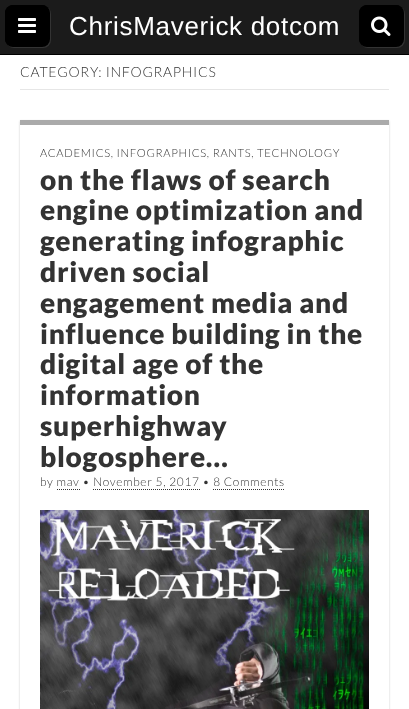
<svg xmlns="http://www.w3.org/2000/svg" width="409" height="709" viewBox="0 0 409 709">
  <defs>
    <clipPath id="clip1"><path d="M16 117H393V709H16ZM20 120H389V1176H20Z" clip-rule="evenodd"/></clipPath>
  </defs>
  <rect width="100%" height="100%" fill="rgb(255,255,255)"/>
  <rect x="0" y="0" width="409" height="54" fill="rgb(27,27,27)"/>
  <rect x="0" y="54" width="409" height="1" fill="rgb(0,0,0)"/>
  <rect x="6" y="6" width="45" height="42" rx="8" fill="rgb(51,51,51)" filter="blur(0.5px)"/>
  <rect x="5" y="5" width="45" height="42" rx="8" fill="rgb(0,0,0)"/>
  <path d="M14 6H43C45 6 47 7 49 9C47 7 45 5 42 5H13C9 5 5 9 5 13V39C5 42 7 44 9 46C7 44 6 42 6 40V14C6 10 10 6 14 6Z" fill="rgb(0,0,0)"/>
  <image x="18" y="18" width="18" height="15" href="pic1.png"/>
  <text x="69" y="35" font-family="Liberation Sans" font-size="26" letter-spacing="0.7" fill="rgb(255,255,255)">ChrisMaverick dotcom</text>
  <rect x="360" y="6" width="45" height="42" rx="8" fill="rgb(51,51,51)" filter="blur(0.5px)"/>
  <rect x="359" y="5" width="45" height="42" rx="8" fill="rgb(0,0,0)"/>
  <path d="M368 6H397C399 6 401 7 403 9C401 7 399 5 396 5H367C363 5 359 9 359 13V39C359 42 361 44 363 46C361 44 360 42 360 40V14C360 10 364 6 368 6Z" fill="rgb(0,0,0)"/>
  <image x="371" y="16" width="20" height="20" href="pic2.png"/>
  <rect x="20" y="89" width="369" height="1" fill="rgb(230,230,230)"/>
  <text x="20" y="77" font-family="Lato" font-size="14" font-weight="300" letter-spacing="0.7" fill="rgb(51,51,51)">CATEGORY: INFOGRAPHICS</text>
  <g clip-path="url(#clip1)">
    <rect x="20" y="121" width="369" height="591" fill="rgba(0,0,0,0.2)" filter="blur(1px)"/>
  </g>
  <rect x="20" y="120" width="369" height="5" fill="rgb(170,170,170)"/>
  <text x="40" y="157" font-family="Lato" font-size="11.2" font-weight="300" letter-spacing="0.7" fill="rgb(51,51,51)">ACADEMICS, INFOGRAPHICS, RANTS, TECHNOLOGY</text>
  <g font-family="Lato" font-size="28" font-weight="900" letter-spacing="0.7" fill="rgb(51,51,51)">
    <text>
      <tspan x="40" y="190">on the flaws of search</tspan>
      <tspan x="40" y="220">engine optimization and</tspan>
      <tspan x="40" y="251">generating infographic</tspan>
      <tspan x="40" y="282">driven social</tspan>
      <tspan x="40" y="313">engagement media and</tspan>
      <tspan x="40" y="344">influence building in the</tspan>
      <tspan x="40" y="374">digital age of the</tspan>
      <tspan x="40" y="405">information</tspan>
      <tspan x="40" y="436">superhighway</tspan>
      <tspan x="40" y="467">blogosphere…</tspan>
    </text>
  </g>
  <text x="40" y="486" font-family="Lato" font-size="11.9" font-weight="300" letter-spacing="0.7" fill="rgb(51,51,51)">by mav • November 5, 2017 • 8 Comments</text>
  <path d="M57 489.5H80" fill="none" stroke="rgb(51,51,51)" stroke-dasharray="1 1"/>
  <path d="M93 489.5H200" fill="none" stroke="rgb(51,51,51)" stroke-dasharray="1 1"/>
  <path d="M213 489.5H285" fill="none" stroke="rgb(51,51,51)" stroke-dasharray="1 1"/>
  <image x="40" y="510" width="329" height="199" href="pic3.png"/>
</svg>
